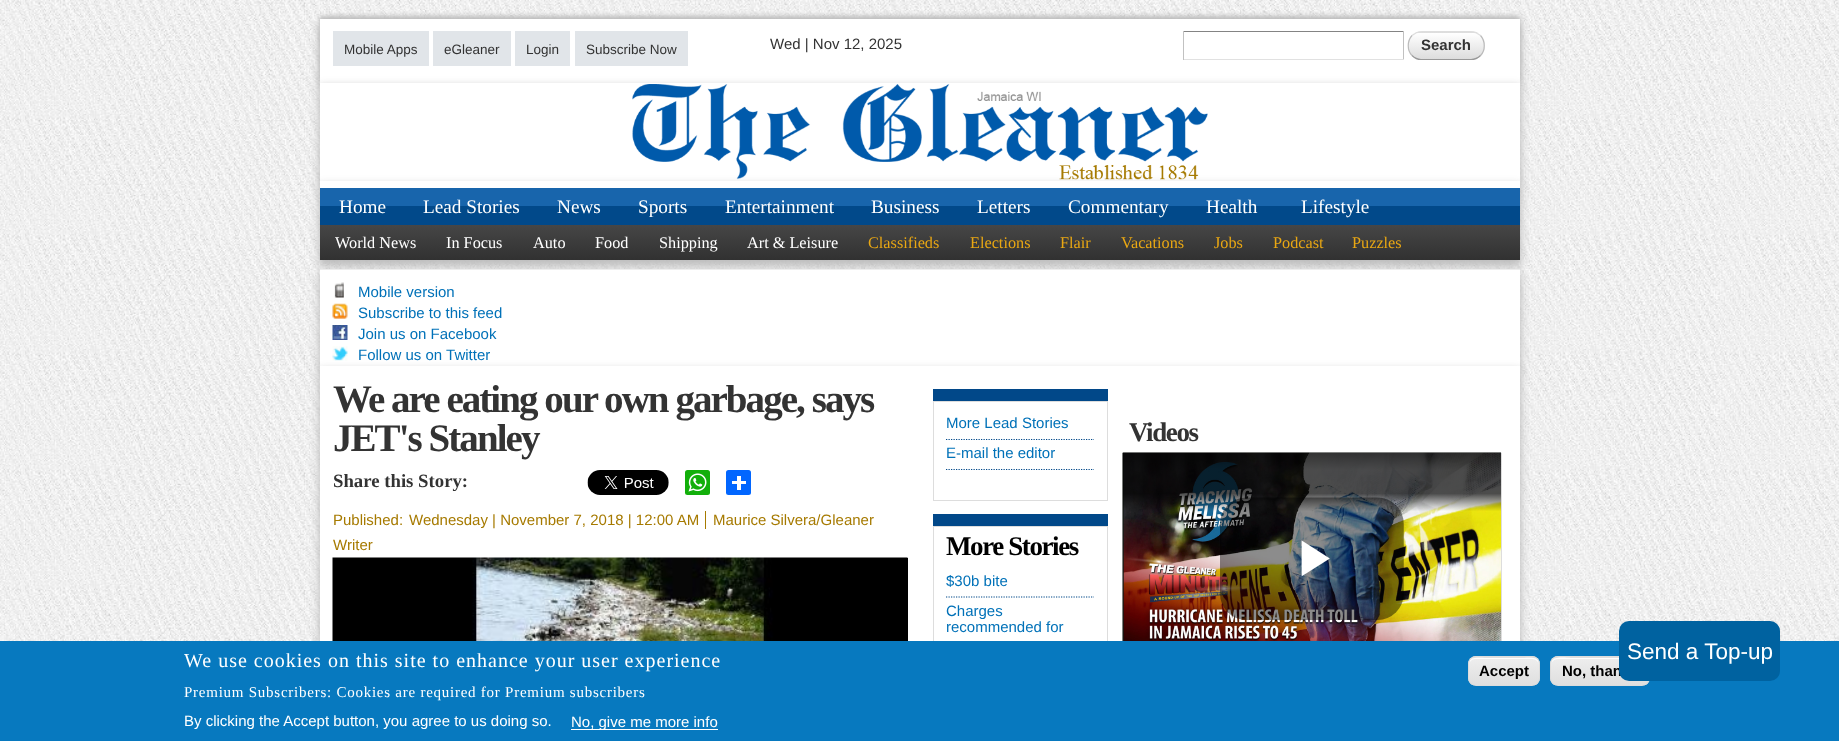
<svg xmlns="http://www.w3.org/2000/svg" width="1839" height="741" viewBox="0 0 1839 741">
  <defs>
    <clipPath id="clip1"><rect x="1408" y="31" width="77" height="29" rx="14"/></clipPath>
    <linearGradient id="g1" gradientUnits="userSpaceOnUse" x1="1409" y1="6.2" x2="1409" y2="33"><stop offset="0" stop-color="rgb(255,255,255)"/><stop offset="1" stop-color="rgb(221,221,221)"/></linearGradient>
    <linearGradient id="g2" gradientUnits="userSpaceOnUse" x1="1409" y1="33" x2="1409" y2="59"><stop offset="0" stop-color="rgb(255,255,255)"/><stop offset="1" stop-color="rgb(221,221,221)"/></linearGradient>
    <linearGradient id="g3" gradientUnits="userSpaceOnUse" x1="920" y1="225" x2="920" y2="260"><stop offset="0" stop-color="rgb(70,70,70)"/><stop offset="1" stop-color="rgb(49,49,49)"/></linearGradient>
    <clipPath id="clip2"><rect x="1468" y="656" width="72" height="30" rx="8"/></clipPath>
    <linearGradient id="g4" gradientUnits="userSpaceOnUse" x1="1504" y1="630" x2="1504" y2="658"><stop offset="0.05" stop-color="rgb(237,237,237)"/><stop offset="1" stop-color="rgb(223,223,223)"/></linearGradient>
    <linearGradient id="g5" gradientUnits="userSpaceOnUse" x1="1504" y1="658" x2="1504" y2="685"><stop offset="0.05" stop-color="rgb(237,237,237)"/><stop offset="1" stop-color="rgb(223,223,223)"/></linearGradient>
    <clipPath id="clip3"><rect x="1550" y="656" width="100" height="30" rx="8"/></clipPath>
    <linearGradient id="g6" gradientUnits="userSpaceOnUse" x1="1600" y1="630" x2="1600" y2="658"><stop offset="0.05" stop-color="rgb(237,237,237)"/><stop offset="1" stop-color="rgb(223,223,223)"/></linearGradient>
    <linearGradient id="g7" gradientUnits="userSpaceOnUse" x1="1600" y1="658" x2="1600" y2="685"><stop offset="0.05" stop-color="rgb(237,237,237)"/><stop offset="1" stop-color="rgb(223,223,223)"/></linearGradient>
  </defs>
  <rect width="100%" height="100%" fill="rgb(255,255,255)"/>
  <image x="0" y="0" width="1839" height="641" href="pic1.png"/>
  <rect x="319" y="23" width="1202" height="66" fill="rgb(187,187,187)" filter="blur(4px)"/>
  <rect x="320" y="16" width="1200" height="64" fill="rgb(187,187,187)" filter="blur(2.5px)"/>
  <rect x="320" y="19" width="1200" height="64" fill="rgb(255,255,255)"/>
  <rect x="333" y="31" width="96" height="35" fill="rgb(225,229,233)"/>
  <text x="344" y="54" font-family="Liberation Sans" font-size="13.5" fill="rgb(51,51,51)">Mobile Apps</text>
  <rect x="433" y="31" width="78" height="35" fill="rgb(225,229,233)"/>
  <text x="444" y="54" font-family="Liberation Sans" font-size="13.5" fill="rgb(51,51,51)">eGleaner</text>
  <rect x="515" y="31" width="55" height="35" fill="rgb(225,229,233)"/>
  <text x="526" y="54" font-family="Liberation Sans" font-size="13.5" fill="rgb(51,51,51)">Login</text>
  <rect x="575" y="31" width="113" height="35" fill="rgb(225,229,233)"/>
  <text x="586" y="54" font-family="Liberation Sans" font-size="13.5" fill="rgb(51,51,51)">Subscribe Now</text>
  <text x="770" y="49" font-family="Liberation Sans" font-size="15" fill="rgb(51,51,51)">Wed | Nov 12, 2025</text>
  <rect x="1183" y="31" width="221" height="1" fill="rgb(132,132,132)"/>
  <rect x="1403" y="31" width="1" height="29" fill="rgb(193,193,193)"/>
  <rect x="1183" y="59" width="221" height="1" fill="rgb(225,225,225)"/>
  <rect x="1183" y="31" width="1" height="29" fill="rgb(193,193,193)"/>
  <g clip-path="url(#clip1)">
    <rect x="1408" y="31" width="77" height="2" fill="url(#g1)"/>
    <rect x="1408" y="33" width="77" height="26" fill="url(#g2)"/>
  </g>
  <path d="M1412 35.5C1414.5 33.5 1418 32 1421 32H1471C1474.5 32 1478 33.5 1480.5 35.5" fill="none" stroke="rgb(221,221,221)" stroke-width="1.2"/>
  <path d="M1480.5 35.5C1485.5 41 1485.5 50.5 1480.5 55.5" fill="none" stroke="rgb(187,187,187)" stroke-width="1.2"/>
  <path d="M1480.5 55.5C1478 58 1474.5 59.5 1471 59.5H1421C1418 59.5 1414.5 58 1412 55.5" fill="none" stroke="rgb(153,153,153)" stroke-width="1.2"/>
  <path d="M1412 55.5C1407 50.5 1407 41 1412 35.5" fill="none" stroke="rgb(187,187,187)" stroke-width="1.2"/>
  <text x="1421" y="50" font-family="Liberation Sans" font-size="15" font-weight="bold" fill="rgb(51,51,51)">Search</text>
  <rect x="319" y="86" width="1202" height="102" fill="rgb(187,187,187)" filter="blur(4px)"/>
  <rect x="320" y="83" width="1200" height="98" fill="rgb(255,255,255)"/>
  <rect x="319" y="185" width="1202" height="81" fill="rgb(187,187,187)" filter="blur(4px)"/>
  <image x="632" y="84" width="576" height="96" href="pic2.png"/>
  <rect x="320" y="181" width="1200" height="7" fill="rgb(255,255,255)"/>
  <rect x="320" y="188" width="1200" height="18" fill="rgb(24,101,172)"/>
  <rect x="320" y="206" width="1200" height="19" fill="rgb(1,73,138)"/>
  <g font-family="Liberation Serif" font-size="19.25" fill="rgb(255,255,255)">
    <text x="339" y="213">Home</text>
    <text x="423" y="213">Lead Stories</text>
    <text x="557" y="213">News</text>
    <text x="638" y="213">Sports</text>
    <text x="725" y="213">Entertainment</text>
    <text x="871" y="213">Business</text>
    <text x="977" y="213">Letters</text>
    <text x="1068" y="213">Commentary</text>
    <text x="1206" y="213">Health</text>
    <text x="1301" y="213">Lifestyle</text>
  </g>
  <rect x="320" y="225" width="1200" height="35" fill="url(#g3)"/>
  <g font-family="Liberation Serif" font-size="16.25" fill="rgb(255,255,255)">
    <text x="335" y="248">World News</text>
    <text x="446" y="248">In Focus</text>
    <text x="533" y="248">Auto</text>
    <text x="595" y="248">Food</text>
    <text x="659" y="248">Shipping</text>
    <text x="747" y="248">Art &amp; Leisure</text>
  </g>
  <g font-family="Liberation Serif" font-size="16.25" fill="rgb(233,167,19)">
    <text x="868" y="248">Classifieds</text>
    <text x="970" y="248">Elections</text>
    <text x="1060" y="248">Flair</text>
    <text x="1121" y="248">Vacations</text>
    <text x="1214" y="248">Jobs</text>
    <text x="1273" y="248">Podcast</text>
    <text x="1352" y="248">Puzzles</text>
  </g>
  <rect x="319" y="273" width="1202" height="100" fill="rgb(187,187,187)" filter="blur(4px)"/>
  <rect x="320" y="269" width="1200" height="1" fill="rgb(237,237,237)"/>
  <rect x="320" y="270" width="1200" height="96" fill="rgb(255,255,255)"/>
  <image x="334" y="282" width="10" height="16" href="pic3.png"/>
  <text x="358" y="297" font-family="Liberation Sans" font-size="15" fill="rgb(0,113,184)">Mobile version</text>
  <image x="332" y="303" width="16" height="16" href="pic4.png"/>
  <text x="358" y="318" font-family="Liberation Sans" font-size="15" fill="rgb(0,113,184)">Subscribe to this feed</text>
  <image x="332" y="325" width="16" height="15" href="pic5.png"/>
  <text x="358" y="339" font-family="Liberation Sans" font-size="15" fill="rgb(0,113,184)">Join us on Facebook</text>
  <rect x="319" y="370" width="1202" height="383" fill="rgb(187,187,187)" filter="blur(4px)"/>
  <image x="332" y="346" width="16" height="15" href="pic6.png"/>
  <text x="358" y="360" font-family="Liberation Sans" font-size="15" fill="rgb(0,113,184)">Follow us on Twitter</text>
  <rect x="320" y="366" width="1200" height="275" fill="rgb(255,255,255)"/>
  <g font-family="Liberation Serif" font-size="39" font-weight="bold" letter-spacing="-1.95" fill="rgb(51,51,51)">
    <text>
      <tspan x="333" y="412">We are eating our own garbage, says</tspan>
      <tspan x="333" y="451">JET's Stanley</tspan>
    </text>
  </g>
  <text x="333" y="487" font-family="Liberation Serif" font-size="18.75" font-weight="bold" fill="rgb(51,51,51)">Share this Story:</text>
  <image x="587" y="470" width="82" height="25" href="pic7.png"/>
  <rect x="685" y="470" width="25" height="25" rx="2.5" fill="rgb(18,175,10)"/>
  <image x="688" y="473" width="19" height="19" href="pic8.png"/>
  <rect x="726" y="470" width="25" height="25" rx="2.5" fill="rgb(1,102,255)"/>
  <rect x="737" y="476" width="4" height="14" fill="rgb(255,255,255)"/>
  <rect x="732" y="481" width="14" height="3" fill="rgb(255,255,255)"/>
  <g font-family="Liberation Sans" font-size="15" fill="rgb(166,122,0)">
    <text x="333" y="525">Published:</text>
    <text x="409" y="525">Wednesday | November 7, 2018 | 12:00 AM</text>
    <text x="713" y="525">Maurice Silvera/Gleaner</text>
  </g>
  <rect x="705" y="511" width="1" height="18" fill="rgb(166,122,0)"/>
  <text x="333" y="550" font-family="Liberation Sans" font-size="15" fill="rgb(166,122,0)">Writer</text>
  <rect x="907" y="558" width="1" height="83" fill="rgb(0,0,0)"/>
  <image x="332" y="557" width="576" height="84" href="pic9.png"/>
  <rect x="933" y="389" width="175" height="12" fill="rgb(1,72,137)"/>
  <rect x="933.5" y="401.5" width="174" height="99" fill="none" stroke="rgb(221,221,221)"/>
  <path d="M946 439.5H1094" fill="none" stroke="rgb(1,72,137)" stroke-width="1.2" stroke-dasharray="1.25 1.25"/>
  <text x="946" y="428" font-family="Liberation Sans" font-size="15" fill="rgb(0,113,184)">More Lead Stories</text>
  <path d="M946 469.5H1094" fill="none" stroke="rgb(1,72,137)" stroke-width="1.2" stroke-dasharray="1.25 1.25"/>
  <text x="946" y="458" font-family="Liberation Sans" font-size="15" fill="rgb(0,113,184)">E-mail the editor</text>
  <rect x="933" y="514" width="175" height="12" fill="rgb(1,72,137)"/>
  <rect x="933.5" y="526.5" width="174" height="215" fill="none" stroke="rgb(221,221,221)"/>
  <text x="946" y="555" font-family="Liberation Serif" font-size="27" font-weight="bold" letter-spacing="-1.4" fill="rgb(0,0,0)">More Stories</text>
  <path d="M946 597H1094" fill="none" stroke="rgb(1,72,137)" stroke-width="1.2" stroke-dasharray="1.25 1.25"/>
  <g font-family="Liberation Sans" font-size="15" fill="rgb(0,113,184)">
    <text x="946" y="586">$30b bite</text>
    <text>
      <tspan x="946" y="616">Charges</tspan>
      <tspan x="946" y="632">recommended for</tspan>
    </text>
  </g>
  <text x="1129" y="441" font-family="Liberation Serif" font-size="27" font-weight="bold" letter-spacing="-1.4" fill="rgb(51,51,51)">Videos</text>
  <image x="1122" y="452" width="380" height="189" href="pic10.png"/>
  <rect x="0" y="641" width="1839" height="100" fill="rgb(7,121,191)"/>
  <text x="184" y="667" font-family="Liberation Serif" font-size="20" letter-spacing="1" fill="rgb(255,255,255)">We use cookies on this site to enhance your user experience</text>
  <text x="184" y="697" font-family="Liberation Serif" font-size="15" letter-spacing="0.75" fill="rgb(255,255,255)">Premium Subscribers: Cookies are required for Premium subscribers</text>
  <text x="184" y="726" font-family="Liberation Sans" font-size="15" fill="rgb(255,255,255)">By clicking the Accept button, you agree to us doing so.</text>
  <rect x="571" y="729" width="147" height="1" fill="rgb(255,255,255)"/>
  <text x="571" y="727" font-family="Liberation Sans" font-size="15" fill="rgb(255,255,255)">No, give me more info</text>
  <g clip-path="url(#clip2)">
    <rect x="1468" y="656" width="72" height="2" fill="url(#g4)"/>
    <rect x="1468" y="658" width="72" height="27" fill="url(#g5)"/>
  </g>
  <path d="M1475 659H1532C1536 659 1539 662 1539 665C1539 656 1530 658 1523 658H1485C1478 658 1469 656 1469 665C1469 662 1472 659 1475 659Z" fill="rgb(255,255,255)"/>
  <rect x="1468.5" y="656.5" width="71" height="29" rx="7.5" fill="none" stroke="rgb(220,220,220)"/>
  <text x="1479" y="676" font-family="Liberation Sans" font-size="15" font-weight="bold" fill="rgb(0,0,0)">Accept</text>
  <g clip-path="url(#clip3)">
    <rect x="1550" y="656" width="69" height="2" fill="url(#g6)"/>
    <rect x="1550" y="658" width="100" height="27" fill="url(#g7)"/>
  </g>
  <path d="M1558 659H1642C1646 659 1649 662 1649 665C1649 655 1635 658 1629 658H1571C1565 658 1551 655 1551 665C1551 662 1554 659 1558 659Z" fill="rgb(255,255,255)"/>
  <rect x="1550.5" y="656.5" width="99" height="29" rx="7.5" fill="none" stroke="rgb(220,220,220)"/>
  <text x="1562" y="676" font-family="Liberation Sans" font-size="15" font-weight="bold" fill="rgb(0,0,0)">No, than</text>
  <rect x="1619" y="621" width="161" height="60" rx="10" fill="rgb(0,98,160)"/>
  <text x="1627" y="659" font-family="Liberation Sans" font-size="22.5" fill="rgb(255,255,255)">Send a Top-up</text>
</svg>
